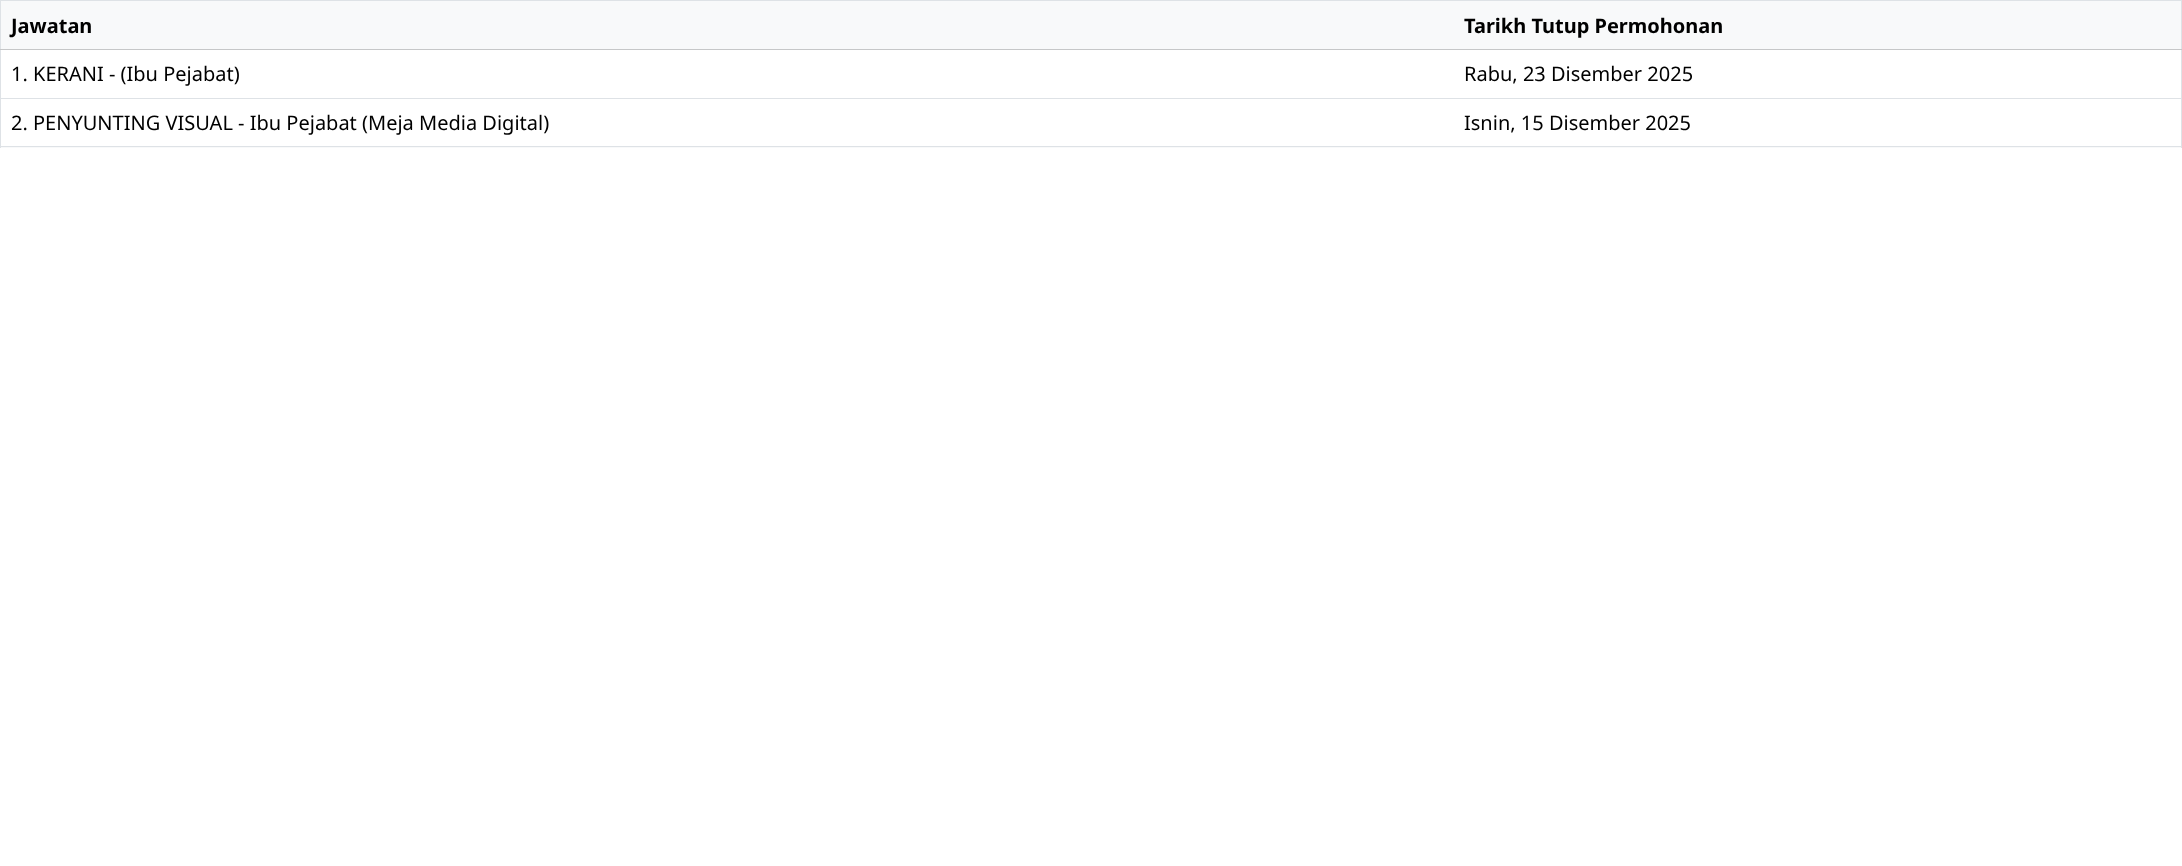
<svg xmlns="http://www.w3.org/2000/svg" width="2182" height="866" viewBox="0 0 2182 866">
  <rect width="100%" height="100%" fill="rgb(255,255,255)"/>
  <rect x="1" y="1" width="2180" height="147" fill="rgb(248,249,250)"/>
  <rect x="0" y="0" width="2182" height="1" fill="rgb(222,226,230)"/>
  <rect x="2181" y="0" width="1" height="148" fill="rgb(222,226,230)"/>
  <rect x="0" y="146" width="2182" height="1" fill="rgb(222,226,230)"/>
  <rect x="0" y="0" width="1" height="148" fill="rgb(222,226,230)"/>
  <text x="11" y="33" font-family="Noto Sans" font-size="20" font-weight="bold" fill="rgb(0,0,0)">Jawatan</text>
  <rect x="0" y="49" width="2182" height="1" fill="rgb(198,199,200)"/>
  <text x="1464" y="33" font-family="Noto Sans" font-size="20" font-weight="bold" fill="rgb(0,0,0)">Tarikh Tutup Permohonan</text>
  <rect x="1" y="50" width="2180" height="48" fill="rgb(255,255,255)"/>
  <text x="11" y="81" font-family="Noto Sans" font-size="20" fill="rgb(0,0,0)">1. KERANI - (Ibu Pejabat)</text>
  <rect x="0" y="98" width="2182" height="1" fill="rgb(222,226,230)"/>
  <text x="1464" y="81" font-family="Noto Sans" font-size="20" fill="rgb(0,0,0)">Rabu, 23 Disember 2025</text>
  <rect x="1" y="99" width="2180" height="47" fill="rgb(255,255,255)"/>
  <g font-family="Noto Sans" font-size="20" fill="rgb(0,0,0)">
    <text x="11" y="130">2. PENYUNTING VISUAL - Ibu Pejabat (Meja Media Digital)</text>
    <text x="1464" y="130">Isnin, 15 Disember 2025</text>
  </g>
</svg>
